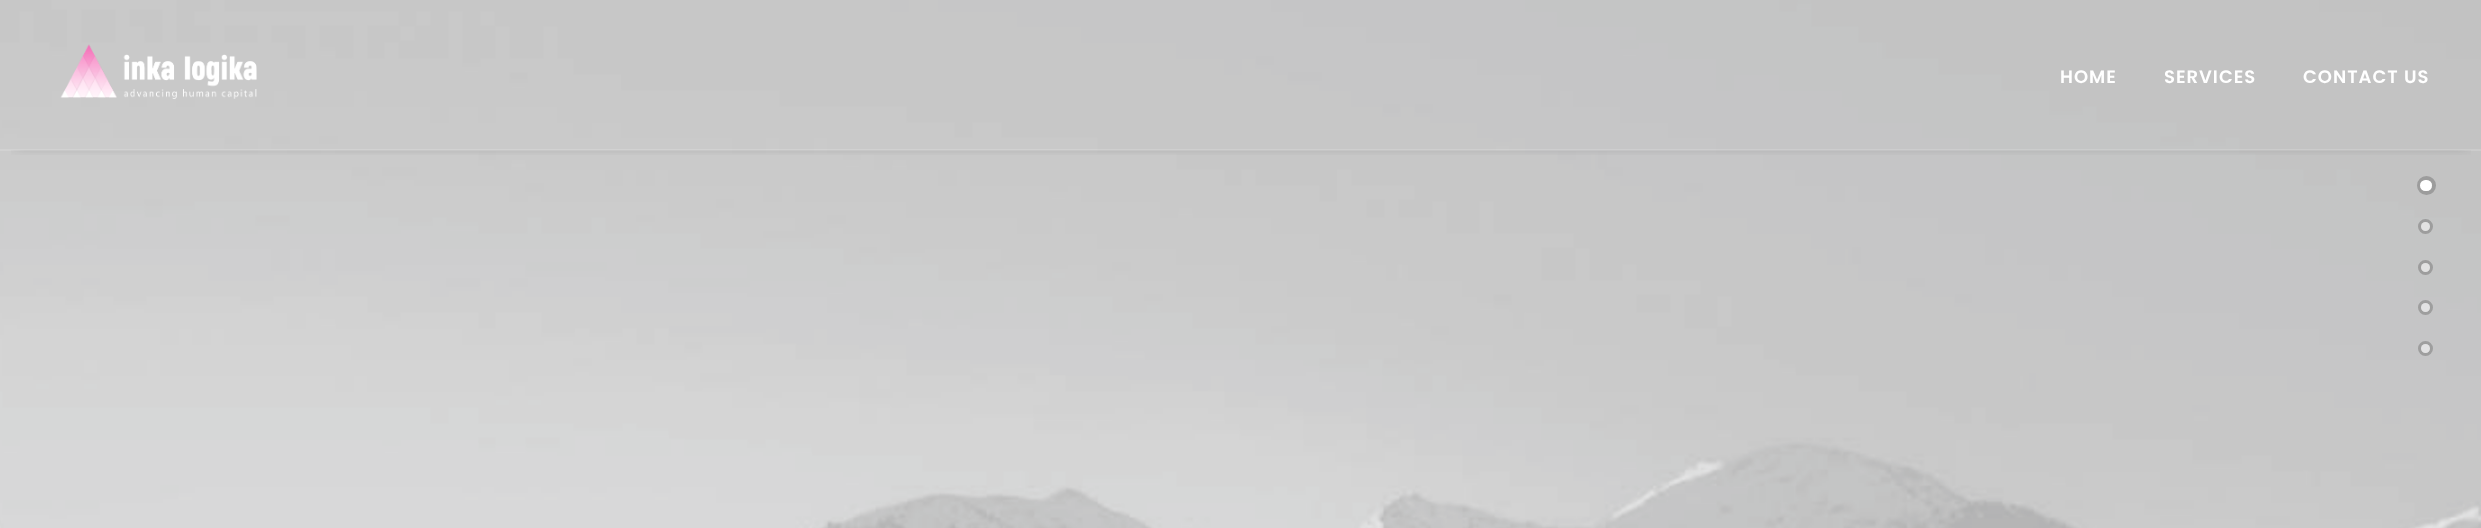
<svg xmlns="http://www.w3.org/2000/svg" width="2481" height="528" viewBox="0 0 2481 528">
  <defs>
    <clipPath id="clip1"><rect x="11" y="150" width="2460" height="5"/></clipPath>
  </defs>
  <rect width="100%" height="100%" fill="rgb(255,255,255)"/>
  <image x="0" y="0" width="2481" height="528" href="pic1.png"/>
  <g clip-path="url(#clip1)">
    <rect x="14" y="21" width="2454" height="120" fill="rgba(0,0,0,0.6)" filter="blur(7.5px)"/>
  </g>
  <rect x="0" y="149" width="2481" height="2" fill="rgba(255,255,255,0.15)"/>
  <image x="60" y="44" width="197" height="55" href="pic2.png"/>
  <g font-family="Poppins" font-size="18" font-weight="600" letter-spacing="1" fill="rgb(255,255,255)">
    <text x="2060" y="83">HOME</text>
    <text x="2164" y="83">SERVICES</text>
    <text x="2303" y="83">CONTACT US</text>
  </g>
  <circle cx="2426.5" cy="185.5" r="7.5" fill="none" stroke="rgb(156,156,156)" stroke-width="4"/>
  <rect x="2420" y="180" width="12" height="11" rx="5.5" fill="rgb(255,255,255)"/>
  <circle cx="2425.5" cy="226.5" r="6" fill="none" stroke="rgb(157,157,157)" stroke-width="3"/>
  <circle cx="2425.5" cy="226.5" r="4.5" fill="rgba(255,255,255,0.5)"/>
  <circle cx="2425.5" cy="267.5" r="6" fill="none" stroke="rgb(157,157,157)" stroke-width="3"/>
  <circle cx="2425.5" cy="267.5" r="4.5" fill="rgba(255,255,255,0.5)"/>
  <circle cx="2425.5" cy="307.5" r="6" fill="none" stroke="rgb(158,158,158)" stroke-width="3"/>
  <circle cx="2425.5" cy="307.5" r="4.5" fill="rgba(255,255,255,0.5)"/>
  <circle cx="2425.5" cy="348.5" r="6" fill="none" stroke="rgb(158,158,158)" stroke-width="3"/>
  <circle cx="2425.5" cy="348.5" r="4.5" fill="rgba(255,255,255,0.5)"/>
</svg>
